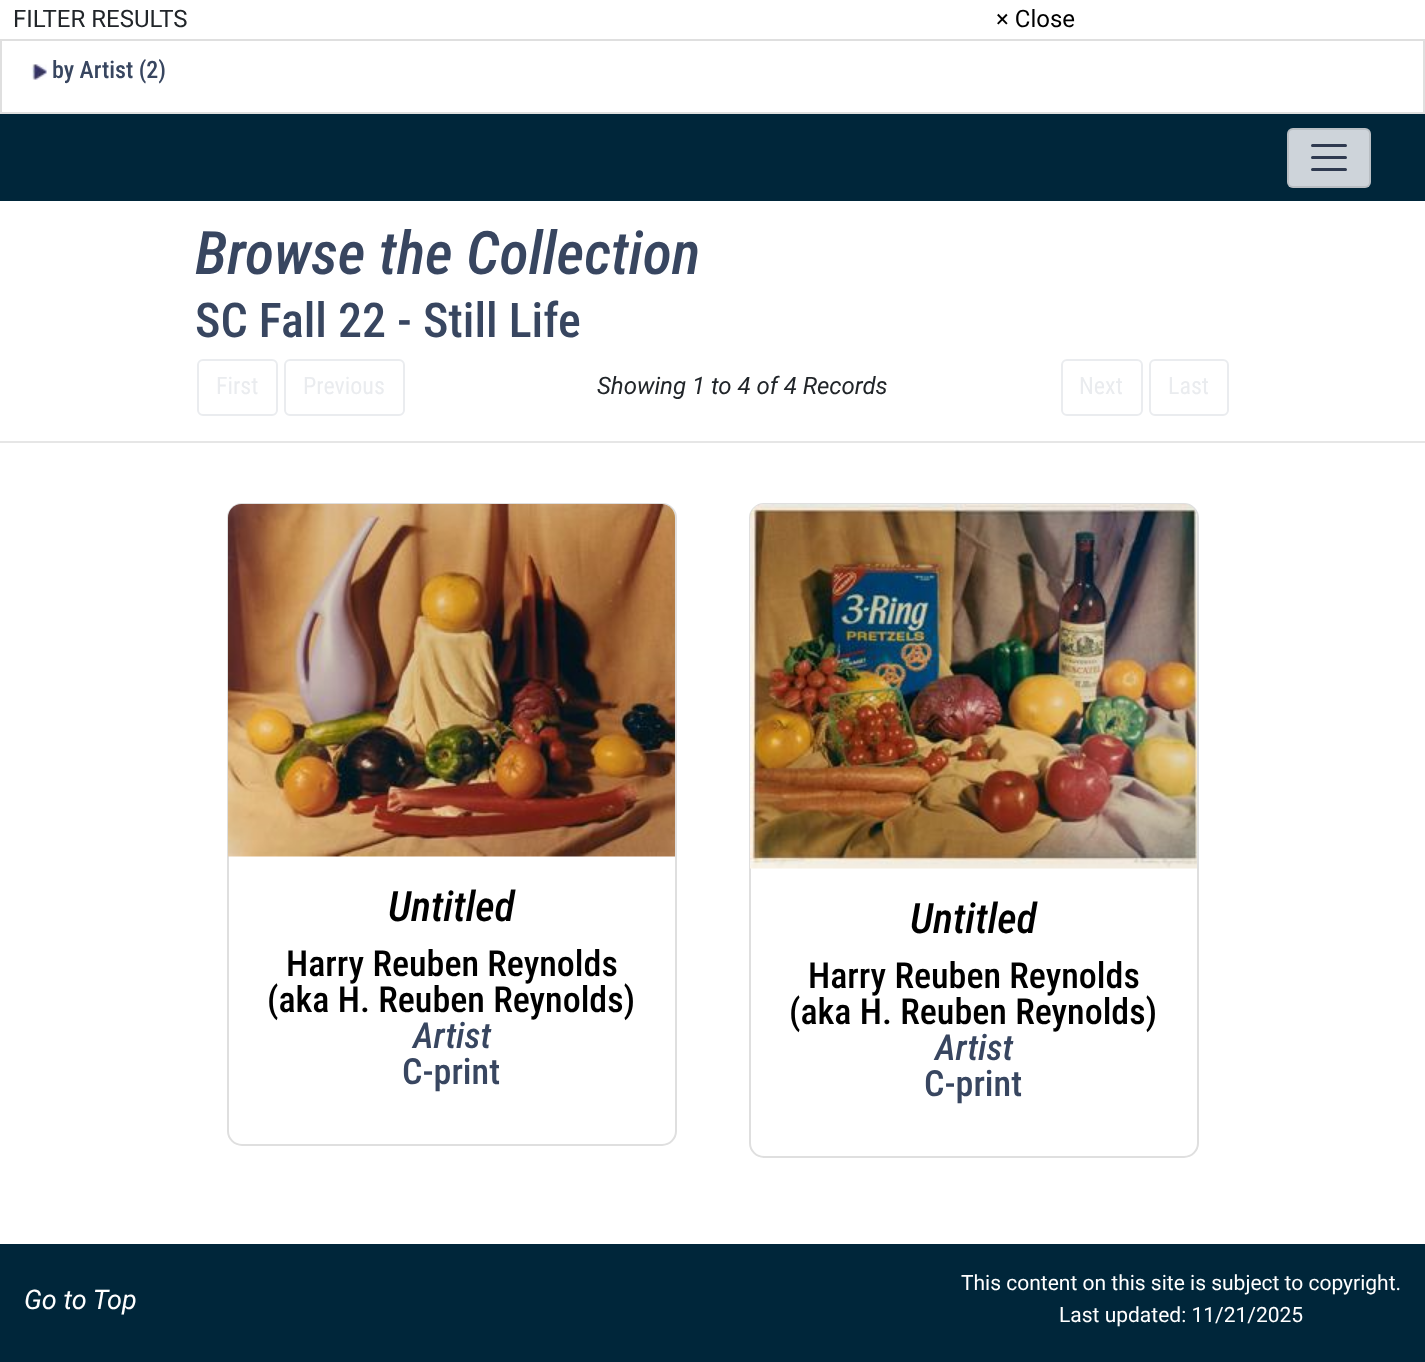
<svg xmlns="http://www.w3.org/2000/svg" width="1425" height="1362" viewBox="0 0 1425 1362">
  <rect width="100%" height="100%" fill="rgb(255,255,255)"/>
  <text x="13" y="27" font-family="Roboto" font-size="24" fill="rgb(33,37,41)">FILTER RESULTS</text>
  <text x="996" y="27" font-family="Roboto" font-size="24" fill="rgb(0,0,0)">× Close</text>
  <rect x="1" y="40" width="1423" height="73" fill="none" stroke="rgb(223,223,223)" stroke-width="2"/>
  <image x="31" y="64" width="16" height="16" href="pic1.png"/>
  <text x="52" y="78" font-family="Roboto Condensed" font-size="24" font-weight="500" fill="rgb(56,70,96)">by Artist (2)</text>
  <rect x="0" y="114" width="1425" height="87" fill="rgb(0,38,58)"/>
  <rect x="1287" y="128" width="84" height="60" rx="6" fill="rgb(206,212,218)"/>
  <rect x="1288" y="129" width="82" height="58" rx="5" fill="none" stroke="rgba(0,0,0,0.1)" stroke-width="2"/>
  <path d="M1312.5 145.5H1345.5M1312.5 157.5H1345.5M1312.5 169.5H1345.5" fill="none" stroke="rgb(47,58,80)" stroke-width="3" stroke-linecap="round"/>
  <text x="195" y="274" font-family="Roboto Condensed" font-size="60" font-weight="500" font-style="italic" fill="rgb(56,70,96)">Browse the Collection</text>
  <text x="195" y="337" font-family="Roboto Condensed" font-size="48" font-weight="500" fill="rgb(56,70,96)">SC Fall 22 - Still Life</text>
  <rect x="198" y="360" width="79" height="55" rx="5" fill="none" stroke="rgb(234,236,239)" stroke-width="2"/>
  <text x="216" y="394" font-family="Roboto Condensed" font-size="24" fill="rgb(234,236,239)">First</text>
  <rect x="285" y="360" width="119" height="55" rx="5" fill="none" stroke="rgb(234,236,239)" stroke-width="2"/>
  <text x="303" y="394" font-family="Roboto Condensed" font-size="24" fill="rgb(234,236,239)">Previous</text>
  <text x="597" y="394" font-family="Roboto" font-size="24" font-style="italic" fill="rgb(33,37,41)">Showing 1 to 4 of 4 Records</text>
  <rect x="1062" y="360" width="80" height="55" rx="5" fill="none" stroke="rgb(234,236,239)" stroke-width="2"/>
  <text x="1079" y="394" font-family="Roboto Condensed" font-size="24" fill="rgb(234,236,239)">Next</text>
  <rect x="1150" y="360" width="78" height="55" rx="5" fill="none" stroke="rgb(234,236,239)" stroke-width="2"/>
  <text x="1168" y="394" font-family="Roboto Condensed" font-size="24" fill="rgb(234,236,239)">Last</text>
  <rect x="0" y="441" width="1425" height="2" fill="rgb(230,230,230)"/>
  <rect x="228" y="504" width="448" height="641" rx="14" fill="none" stroke="rgb(223,223,223)" stroke-width="2"/>
  <image x="228" y="504" width="447" height="353" href="pic2.png"/>
  <text x="388" y="921" font-family="Roboto Condensed" font-size="42" font-weight="500" font-style="italic" fill="rgb(0,0,0)">Untitled</text>
  <g font-family="Roboto Condensed" font-size="36" font-weight="500" fill="rgb(0,0,0)">
    <text x="286" y="976">Harry Reuben Reynolds</text>
    <text x="267" y="1012">(aka H. Reuben Reynolds)</text>
  </g>
  <text x="413" y="1048" font-family="Roboto Condensed" font-size="36" font-weight="500" font-style="italic" fill="rgb(56,70,96)">Artist</text>
  <text x="402" y="1084" font-family="Roboto Condensed" font-size="36" font-weight="500" fill="rgb(56,70,96)">C-print</text>
  <rect x="750" y="504" width="448" height="653" rx="14" fill="none" stroke="rgb(223,223,223)" stroke-width="2"/>
  <image x="750" y="504" width="447" height="365" href="pic3.png"/>
  <text x="910" y="933" font-family="Roboto Condensed" font-size="42" font-weight="500" font-style="italic" fill="rgb(0,0,0)">Untitled</text>
  <g font-family="Roboto Condensed" font-size="36" font-weight="500" fill="rgb(0,0,0)">
    <text x="808" y="988">Harry Reuben Reynolds</text>
    <text x="789" y="1024">(aka H. Reuben Reynolds)</text>
  </g>
  <text x="935" y="1060" font-family="Roboto Condensed" font-size="36" font-weight="500" font-style="italic" fill="rgb(56,70,96)">Artist</text>
  <text x="924" y="1096" font-family="Roboto Condensed" font-size="36" font-weight="500" fill="rgb(56,70,96)">C-print</text>
  <rect x="0" y="1244" width="1425" height="118" fill="rgb(0,38,58)"/>
  <text x="24" y="1309" font-family="Roboto" font-size="27" font-style="italic" fill="rgb(255,255,255)">Go to Top</text>
  <g font-family="Roboto" font-size="21" fill="rgb(255,255,255)">
    <text x="961" y="1290">This content on this site is subject to copyright.</text>
    <text x="1059" y="1322">Last updated: 11/21/2025</text>
  </g>
</svg>
